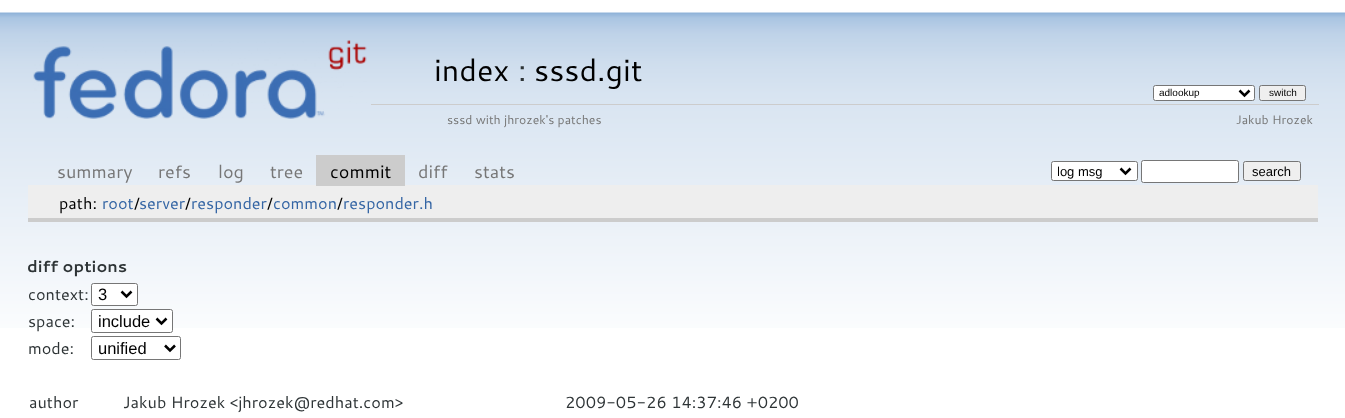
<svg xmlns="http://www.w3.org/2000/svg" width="1345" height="418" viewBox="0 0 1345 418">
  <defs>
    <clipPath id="clip1"><rect x="1058" y="163" width="58" height="17"/></clipPath>
  </defs>
  <rect width="100%" height="100%" fill="rgb(255,255,255)"/>
  <image x="0" y="12" width="1345" height="316" href="pic1.png"/>
  <image x="33" y="40" width="334" height="79" href="pic2.png"/>
  <text x="434" y="81" font-family="Cantarell" font-size="30.5" fill="rgb(0,0,0)">index</text>
  <text x="518" y="81" font-family="Cantarell" font-size="30.5" fill="rgb(46,52,54)">:</text>
  <text x="534" y="81" font-family="Cantarell" font-size="30.5" fill="rgb(0,0,0)">sssd.git</text>
  <rect x="1153.5" y="85.5" width="101" height="15" rx="2" fill="rgb(255,255,255)" stroke="rgb(118,118,118)"/>
  <path d="M1239.5 90.5L1244.5 95.5L1249.5 90.5" fill="none" stroke="rgb(0,0,0)" stroke-width="2.5"/>
  <text x="1159" y="96" font-family="Liberation Sans" font-size="10" fill="rgb(0,0,0)">adlookup</text>
  <rect x="1259.5" y="85.5" width="46" height="15" rx="2" fill="rgb(239,239,239)" stroke="rgb(118,118,118)"/>
  <text x="1269" y="96" font-family="Liberation Sans" font-size="10" fill="rgb(0,0,0)">switch</text>
  <text x="447" y="124" font-family="Cantarell" font-size="12.25" fill="rgb(119,119,119)">sssd with jhrozek's patches</text>
  <rect x="371" y="104" width="948" height="1" fill="rgb(204,204,204)"/>
  <text x="1236" y="124" font-family="Cantarell" font-size="12.25" fill="rgb(119,119,119)">Jakub Hrozek</text>
  <g font-family="Cantarell" font-size="18" fill="rgb(119,119,119)">
    <text x="57" y="178">summary</text>
    <text x="158" y="178">refs</text>
    <text x="218" y="178">log</text>
    <text x="270" y="178">tree</text>
  </g>
  <rect x="28" y="185" width="1290" height="33" fill="rgb(238,238,238)"/>
  <rect x="316" y="155" width="89" height="31" fill="rgb(204,204,204)"/>
  <text x="330" y="178" font-family="Cantarell" font-size="18" fill="rgb(0,0,0)">commit</text>
  <g font-family="Cantarell" font-size="18" fill="rgb(119,119,119)">
    <text x="418" y="178">diff</text>
    <text x="474" y="178">stats</text>
  </g>
  <rect x="1051.5" y="161.5" width="86" height="19" rx="2" fill="rgb(255,255,255)" stroke="rgb(118,118,118)"/>
  <path d="M1120.5 168.5L1125.5 173.5L1130.5 168.5" fill="none" stroke="rgb(0,0,0)" stroke-width="2.5"/>
  <g clip-path="url(#clip1)">
    <text x="1057" y="176" font-family="Liberation Sans" font-size="13" fill="rgb(0,0,0)">log msg</text>
  </g>
  <rect x="1141.5" y="160.5" width="97" height="22" rx="2" fill="rgb(255,255,255)" stroke="rgb(118,118,118)"/>
  <rect x="1243.5" y="161.5" width="57" height="19" rx="2" fill="rgb(239,239,239)" stroke="rgb(118,118,118)"/>
  <text x="1252" y="176" font-family="Liberation Sans" font-size="13" fill="rgb(0,0,0)">search</text>
  <text x="59" y="209" font-family="Cantarell" font-size="16.25" fill="rgb(0,0,0)">path:</text>
  <text x="102" y="209" font-family="Cantarell" font-size="16.25" fill="rgb(52,101,164)">root</text>
  <text x="134" y="209" font-family="Cantarell" font-size="16.25" fill="rgb(0,0,0)">/</text>
  <text x="139" y="209" font-family="Cantarell" font-size="16.25" fill="rgb(52,101,164)">server</text>
  <text x="185" y="209" font-family="Cantarell" font-size="16.25" fill="rgb(0,0,0)">/</text>
  <text x="191" y="209" font-family="Cantarell" font-size="16.25" fill="rgb(52,101,164)">responder</text>
  <text x="267" y="209" font-family="Cantarell" font-size="16.25" fill="rgb(0,0,0)">/</text>
  <text x="273" y="209" font-family="Cantarell" font-size="16.25" fill="rgb(52,101,164)">common</text>
  <text x="337" y="209" font-family="Cantarell" font-size="16.25" fill="rgb(0,0,0)">/</text>
  <text x="343" y="209" font-family="Cantarell" font-size="16.25" fill="rgb(52,101,164)">responder.h</text>
  <rect x="28" y="218" width="1290" height="4" fill="rgb(204,204,204)"/>
  <text x="27" y="272" font-family="Cantarell" font-size="16.25" font-weight="bold" fill="rgb(46,52,54)">diff options</text>
  <text x="28" y="300" font-family="Cantarell" font-size="16.25" fill="rgb(46,52,54)">context:</text>
  <rect x="91.5" y="283.5" width="46" height="22" rx="2" fill="rgb(255,255,255)" stroke="rgb(118,118,118)"/>
  <path d="M121.5 291.5L126.5 296.5L131.5 291.5" fill="none" stroke="rgb(0,0,0)" stroke-width="2.5"/>
  <text x="98" y="300" font-family="Liberation Sans" font-size="16.5" fill="rgb(0,0,0)">3</text>
  <text x="28" y="327" font-family="Cantarell" font-size="16.25" fill="rgb(46,52,54)">space:</text>
  <rect x="91.5" y="309.5" width="81" height="23" rx="2" fill="rgb(255,255,255)" stroke="rgb(118,118,118)"/>
  <path d="M156.5 318.5L161.5 323.5L166.5 318.5" fill="none" stroke="rgb(0,0,0)" stroke-width="2.5"/>
  <text x="98" y="327" font-family="Liberation Sans" font-size="16.5" fill="rgb(0,0,0)">include</text>
  <text x="28" y="354" font-family="Cantarell" font-size="16.25" fill="rgb(46,52,54)">mode:</text>
  <rect x="91.5" y="336.5" width="89" height="23" rx="2" fill="none" stroke="rgb(118,118,118)"/>
  <path d="M165 345.5L170 350.5L175 345.5" fill="none" stroke="rgb(0,0,0)" stroke-width="2.5"/>
  <text x="98" y="354" font-family="Liberation Sans" font-size="16.5" fill="rgb(0,0,0)">unified</text>
  <g font-family="Cantarell" font-size="16.25" fill="rgb(46,52,54)">
    <text x="29" y="408">author</text>
    <text x="123" y="408">Jakub Hrozek &lt;jhrozek@redhat.com&gt;</text>
    <text x="565" y="408">2009-05-26 14:37:46 +0200</text>
  </g>
</svg>
